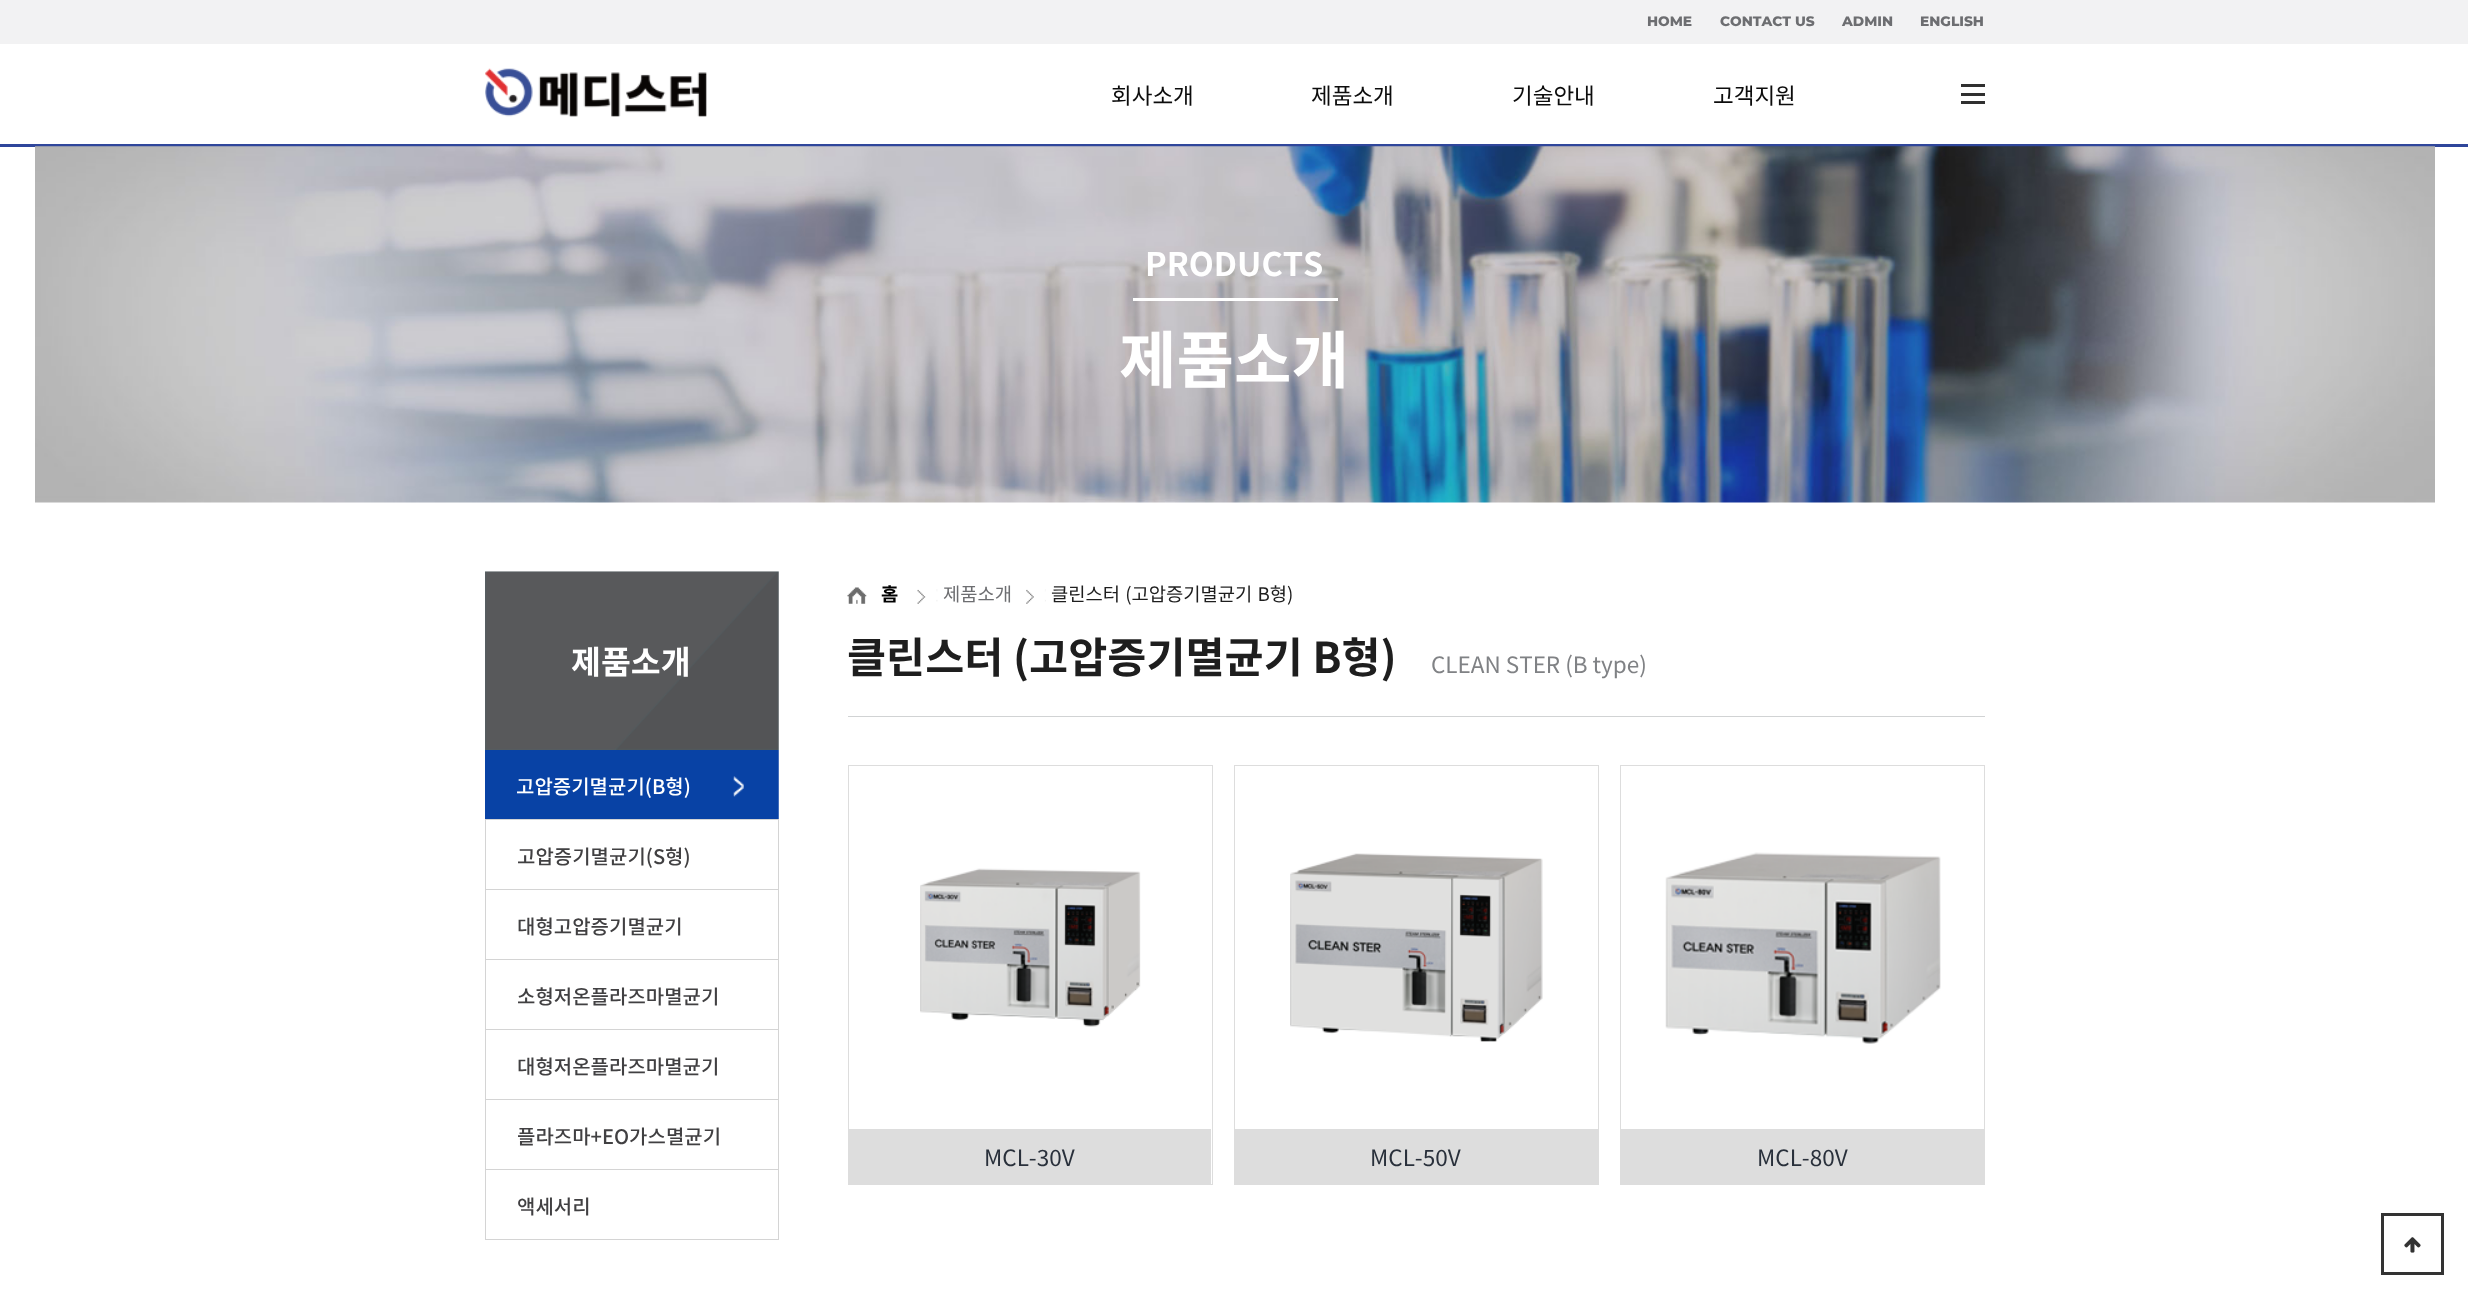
<svg xmlns="http://www.w3.org/2000/svg" width="2468" height="1300" viewBox="0 0 2468 1300">
  <style>*{font-kerning:none!important;font-variant-ligatures:none!important}</style>
  <rect width="100%" height="100%" fill="rgb(255,255,255)"/>
  <rect x="0" y="144" width="2468" height="3" fill="rgb(47,70,155)"/>
  <rect x="0" y="0" width="2468" height="44" fill="rgb(242,242,243)"/>
  <g font-family="Montserrat" font-size="13.75" font-weight="100" fill="rgb(109,110,113)">
    <text x="1647" y="26">HOME</text>
    <text x="1720" y="26">CONTACT US</text>
    <text x="1842" y="26">ADMIN</text>
    <text x="1920" y="26">ENGLISH</text>
  </g>
  <image x="485" y="68" width="222" height="49" href="pic1.png"/>
  <g font-family="Noto Sans KR" font-size="22.5" fill="rgb(12,12,12)">
    <text x="1111" y="104">회사소개</text>
    <text x="1311" y="104">제품소개</text>
    <text x="1512" y="104">기술안내</text>
    <text x="1713" y="104">고객지원</text>
  </g>
  <rect x="1961" y="84" width="24" height="3" fill="rgb(48,48,48)"/>
  <rect x="1961" y="93" width="24" height="3" fill="rgb(48,48,48)"/>
  <rect x="1961" y="101" width="24" height="3" fill="rgb(48,48,48)"/>
  <image x="35" y="146" width="2400" height="357" href="pic2.png"/>
  <text x="1145" y="276" font-family="Noto Sans KR" font-size="32.5" font-weight="bold" fill="rgb(255,255,255)">PRODUCTS</text>
  <rect x="1133" y="298" width="205" height="3" fill="rgb(255,255,255)"/>
  <text x="1119" y="383" font-family="Noto Sans KR" font-size="62.5" font-weight="bold" fill="rgb(255,255,255)">제품소개</text>
  <image x="485" y="571" width="294" height="179" href="pic3.png"/>
  <text x="571" y="674" font-family="Noto Sans KR" font-size="32.5" font-weight="bold" fill="rgb(255,255,255)">제품소개</text>
  <image x="485" y="750" width="294" height="69" href="pic4.png"/>
  <rect x="485" y="819" width="294" height="1" fill="rgb(212,212,212)"/>
  <text x="516" y="794" font-family="Noto Sans KR" font-size="20" font-weight="500" fill="rgb(255,255,255)">고압증기멸균기(B형)</text>
  <rect x="778" y="820" width="1" height="420" fill="rgb(212,212,212)"/>
  <rect x="485" y="889" width="294" height="1" fill="rgb(212,212,212)"/>
  <rect x="485" y="820" width="1" height="70" fill="rgb(212,212,212)"/>
  <text x="517" y="864" font-family="Noto Sans KR" font-size="20" font-weight="500" fill="rgb(65,64,66)">고압증기멸균기(S형)</text>
  <rect x="485" y="959" width="294" height="1" fill="rgb(212,212,212)"/>
  <rect x="485" y="890" width="1" height="70" fill="rgb(212,212,212)"/>
  <text x="517" y="934" font-family="Noto Sans KR" font-size="20" font-weight="500" fill="rgb(65,64,66)">대형고압증기멸균기</text>
  <rect x="485" y="1029" width="294" height="1" fill="rgb(212,212,212)"/>
  <rect x="485" y="960" width="1" height="70" fill="rgb(212,212,212)"/>
  <text x="517" y="1004" font-family="Noto Sans KR" font-size="20" font-weight="500" fill="rgb(65,64,66)">소형저온플라즈마멸균기</text>
  <rect x="485" y="1099" width="294" height="1" fill="rgb(212,212,212)"/>
  <rect x="485" y="1030" width="1" height="70" fill="rgb(212,212,212)"/>
  <text x="517" y="1074" font-family="Noto Sans KR" font-size="20" font-weight="500" fill="rgb(65,64,66)">대형저온플라즈마멸균기</text>
  <rect x="485" y="1169" width="294" height="1" fill="rgb(212,212,212)"/>
  <rect x="485" y="1100" width="1" height="70" fill="rgb(212,212,212)"/>
  <text x="517" y="1144" font-family="Noto Sans KR" font-size="20" font-weight="500" fill="rgb(65,64,66)">플라즈마+EO가스멸균기</text>
  <rect x="485" y="1239" width="294" height="1" fill="rgb(212,212,212)"/>
  <rect x="485" y="1170" width="1" height="70" fill="rgb(212,212,212)"/>
  <text x="517" y="1214" font-family="Noto Sans KR" font-size="20" font-weight="500" fill="rgb(65,64,66)">액세서리</text>
  <image x="847" y="587" width="20" height="17" href="pic5.png"/>
  <text x="881" y="601" font-family="'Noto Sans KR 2'" font-size="18.75" font-weight="bold" fill="rgb(0,0,0)">홈</text>
  <image x="917" y="589" width="21" height="15" href="pic6.png"/>
  <text x="943" y="601" font-family="Noto Sans KR" font-size="18.75" fill="rgb(109,110,113)">제품소개</text>
  <image x="1026" y="589" width="20" height="15" href="pic7.png"/>
  <text x="1051" y="601" word-spacing="1" font-family="Noto Sans KR" font-size="18.75" fill="rgb(30,30,30)">클린스터 (고압증기멸균기 B형)</text>
  <rect x="848" y="716" width="1137" height="1" fill="rgb(209,211,212)"/>
  <text x="847" y="673" font-family="Noto Sans KR" font-size="42.5" font-weight="bold" fill="rgb(30,30,30)">클린스터 (고압증기멸균기 B형)</text>
  <text x="1431" y="673" font-family="'Noto Sans KR 2'" font-size="22.5" fill="rgb(128,130,133)">CLEAN STER (B type)</text>
  <rect x="848.5" y="765.5" width="364" height="419" fill="none" stroke="rgb(221,221,221)"/>
  <image x="920" y="868" width="221" height="159" href="pic8.png"/>
  <rect x="849" y="1129" width="362" height="55" fill="rgb(221,221,221)"/>
  <text x="984" y="1166" font-family="Noto Sans KR" font-size="22.5" fill="rgb(41,48,59)">MCL-30V</text>
  <rect x="1234.5" y="765.5" width="364" height="419" fill="none" stroke="rgb(221,221,221)"/>
  <image x="1290" y="853" width="253" height="189" href="pic9.png"/>
  <rect x="1235" y="1129" width="363" height="55" fill="rgb(221,221,221)"/>
  <text x="1370" y="1166" font-family="Noto Sans KR" font-size="22.5" fill="rgb(41,48,59)">MCL-50V</text>
  <rect x="1620.5" y="765.5" width="364" height="419" fill="none" stroke="rgb(221,221,221)"/>
  <image x="1665" y="852" width="276" height="192" href="pic10.png"/>
  <rect x="1621" y="1129" width="363" height="55" fill="rgb(221,221,221)"/>
  <text x="1757" y="1166" font-family="Noto Sans KR" font-size="22.5" fill="rgb(41,48,59)">MCL-80V</text>
  <rect x="2382.5" y="1214.5" width="60" height="59" fill="none" stroke="rgb(51,51,51)" stroke-width="3"/>
  <image x="2404" y="1237" width="17" height="16" href="pic11.png"/>
</svg>
